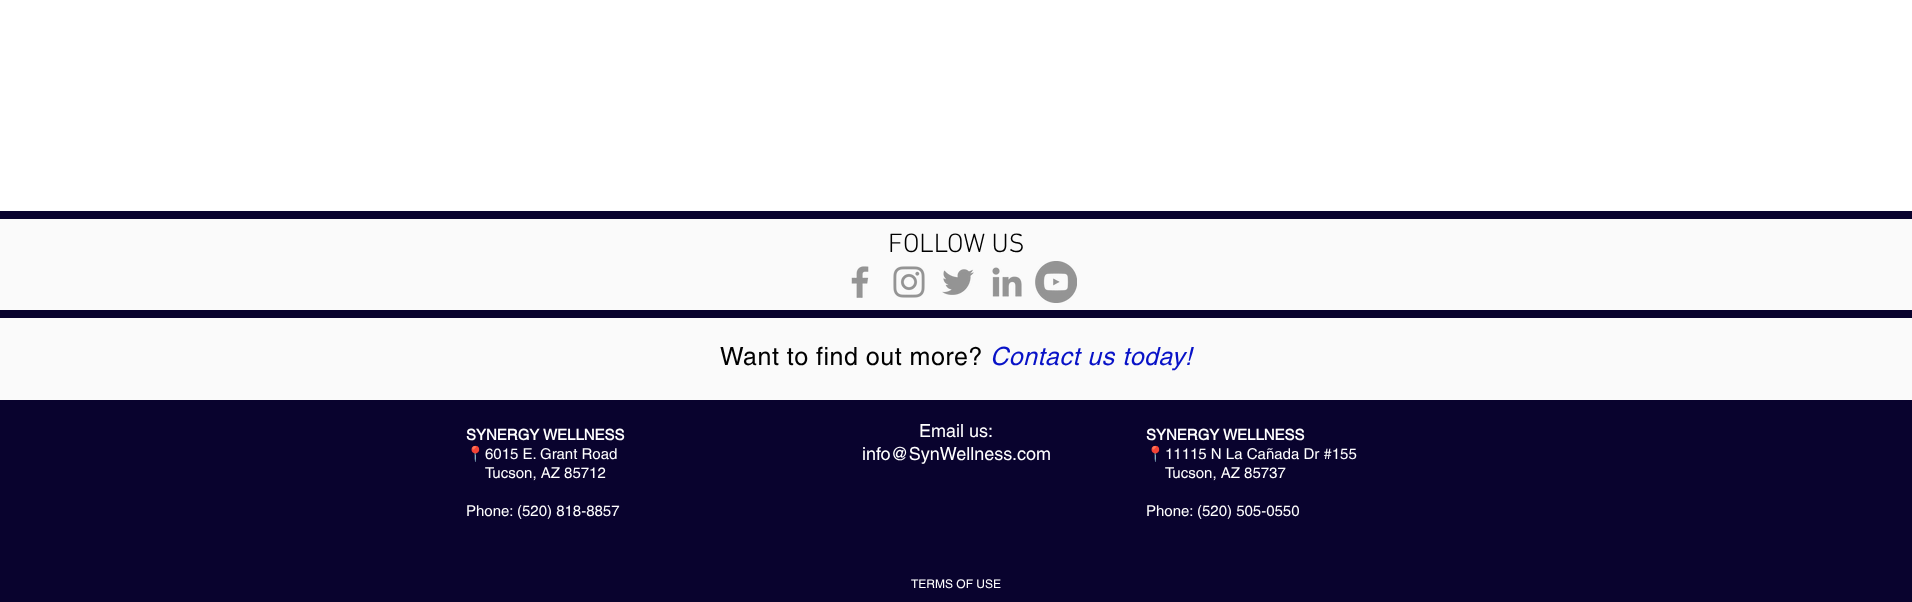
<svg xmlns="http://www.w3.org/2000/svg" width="1912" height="602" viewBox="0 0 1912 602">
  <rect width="100%" height="100%" fill="rgb(255,255,255)"/>
  <rect x="0" y="211" width="1912" height="8" fill="rgb(9,3,46)"/>
  <rect x="0" y="219" width="1912" height="91" fill="rgb(250,250,250)"/>
  <text x="888" y="252" font-family="'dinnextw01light'" font-size="27" font-weight="300" fill="rgb(0,0,0)">FOLLOW US</text>
  <image x="851" y="266" width="18" height="32" href="pic1.png"/>
  <image x="893" y="266" width="32" height="32" href="pic2.png"/>
  <image x="942" y="269" width="32" height="26" href="pic3.png"/>
  <image x="992" y="267" width="30" height="30" href="pic4.png"/>
  <image x="1035" y="261" width="42" height="42" href="pic5.png"/>
  <rect x="0" y="310" width="1912" height="8" fill="rgb(9,3,46)"/>
  <rect x="0" y="318" width="1912" height="82" fill="rgb(250,250,250)"/>
  <text x="720" y="365" font-family="helvetica" font-size="25" letter-spacing="0.5" fill="rgb(0,0,0)">Want to find out more?</text>
  <text x="990" y="365" font-family="helvetica" font-size="25" font-style="italic" letter-spacing="0.5" fill="rgb(8,18,199)">Contact us today!</text>
  <rect x="0" y="400" width="1912" height="202" fill="rgb(9,3,46)"/>
  <text x="466" y="440" font-family="helvetica" font-size="15" font-weight="bold" fill="rgb(255,255,255)">SYNERGY WELLNESS</text>
  <text x="466" y="459" font-family="Noto Color Emoji" font-size="15" fill="rgb(255,255,255)">📍</text>
  <g font-family="helvetica" font-size="15" fill="rgb(255,255,255)">
    <text>
      <tspan x="485" y="459">6015 E. Grant Road</tspan>
      <tspan x="485" y="478">Tucson, AZ 85712</tspan>
    </text>
    <text x="466" y="516">Phone: (520) 818-8857</text>
  </g>
  <g font-family="helvetica" font-size="18" fill="rgb(255,255,255)">
    <text x="919" y="437">Email us:</text>
    <text x="862" y="460">info@SynWellness.com</text>
  </g>
  <text x="1146" y="440" font-family="helvetica" font-size="15" font-weight="bold" fill="rgb(255,255,255)">SYNERGY WELLNESS</text>
  <text x="1146" y="459" font-family="Noto Color Emoji" font-size="15" fill="rgb(255,255,255)">📍</text>
  <g font-family="helvetica" font-size="15" fill="rgb(255,255,255)">
    <text>
      <tspan x="1165" y="459">11115 N La Cañada Dr #155</tspan>
      <tspan x="1165" y="478">Tucson, AZ 85737</tspan>
    </text>
    <text x="1146" y="516">Phone: (520) 505-0550</text>
  </g>
  <text x="911" y="588" font-family="helvetica" font-size="12" fill="rgb(255,255,255)">TERMS OF USE</text>
</svg>
